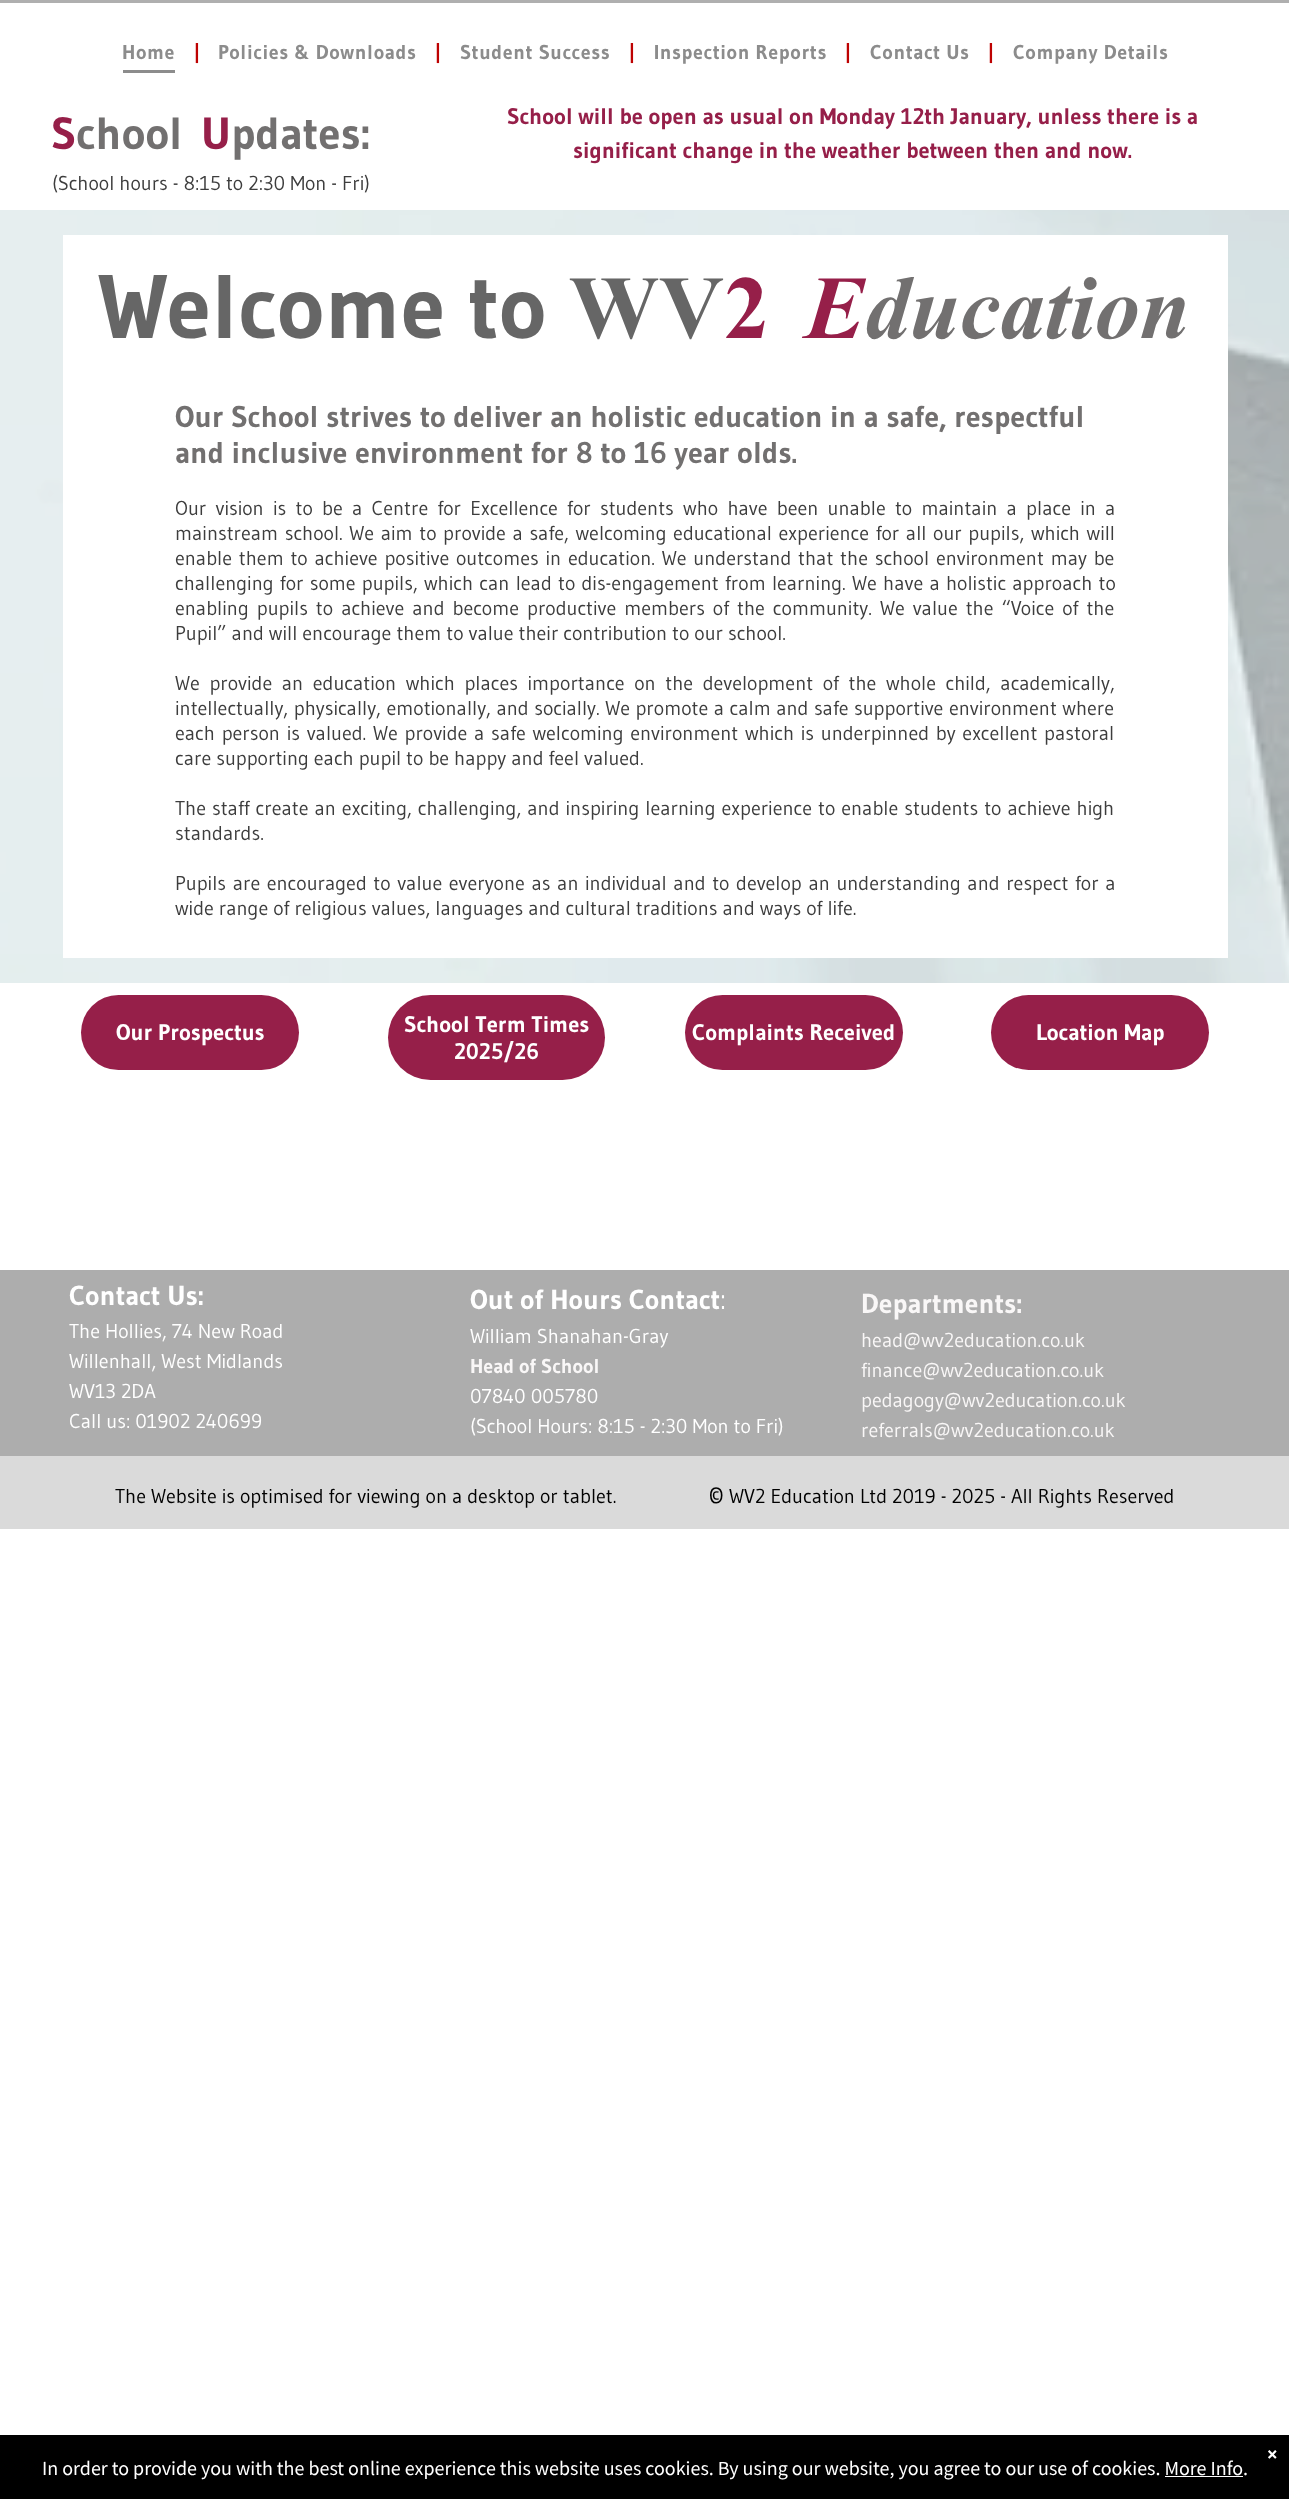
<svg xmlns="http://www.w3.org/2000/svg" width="1289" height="2499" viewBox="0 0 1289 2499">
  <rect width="100%" height="100%" fill="rgb(255,255,255)"/>
  <rect x="0" y="0" width="1289" height="3" fill="rgb(175,175,175)"/>
  <text x="122" y="59" font-family="Gudea" font-size="20" font-weight="bold" letter-spacing="0.6" fill="rgb(140,140,140)">Home</text>
  <rect x="123" y="70" width="52" height="3" fill="rgb(140,140,140)"/>
  <text x="194" y="59" font-family="Gudea" font-size="20" font-weight="bold" fill="rgb(190,2,2)">|</text>
  <text x="218" y="59" font-family="Gudea" font-size="20" font-weight="bold" letter-spacing="0.6" fill="rgb(140,140,140)">Policies &amp; Downloads</text>
  <text x="435" y="59" font-family="Gudea" font-size="20" font-weight="bold" fill="rgb(190,2,2)">|</text>
  <text x="460" y="59" font-family="Gudea" font-size="20" font-weight="bold" letter-spacing="0.6" fill="rgb(140,140,140)">Student Success</text>
  <text x="629" y="59" font-family="Gudea" font-size="20" font-weight="bold" fill="rgb(190,2,2)">|</text>
  <text x="654" y="59" font-family="Gudea" font-size="20" font-weight="bold" letter-spacing="0.6" fill="rgb(140,140,140)">Inspection Reports</text>
  <text x="845" y="59" font-family="Gudea" font-size="20" font-weight="bold" fill="rgb(190,2,2)">|</text>
  <text x="870" y="59" font-family="Gudea" font-size="20" font-weight="bold" letter-spacing="0.6" fill="rgb(140,140,140)">Contact Us</text>
  <text x="988" y="59" font-family="Gudea" font-size="20" font-weight="bold" fill="rgb(190,2,2)">|</text>
  <text x="1013" y="59" font-family="Gudea" font-size="20" font-weight="bold" letter-spacing="0.6" fill="rgb(140,140,140)">Company Details</text>
  <text x="51" y="149" font-family="Gudea" font-size="45" font-weight="bold" fill="rgb(150,31,73)">S</text>
  <text x="76" y="149" font-family="Gudea" font-size="45" font-weight="bold" fill="rgb(114,112,112)">chool</text>
  <text x="201" y="149" font-family="Gudea" font-size="45" font-weight="bold" fill="rgb(150,31,73)">U</text>
  <text x="231" y="149" font-family="Gudea" font-size="45" font-weight="bold" fill="rgb(114,112,112)">pdates:</text>
  <text x="52" y="190" font-family="Gudea" font-size="20" fill="rgb(61,61,61)">(School hours - 8:15 to 2:30 Mon - Fri)</text>
  <g font-family="Gudea" font-size="22.5" font-weight="bold" fill="rgb(150,31,73)">
    <text x="507" y="124">School will be open as usual on Monday 12th January, unless there is a</text>
    <text x="573" y="158">significant change in the weather between then and now.</text>
  </g>
  <image x="0" y="210" width="1289" height="773" href="pic1.png"/>
  <rect x="63" y="235" width="1165" height="723" fill="rgb(255,255,255)"/>
  <text x="99" y="338" font-family="Gudea" font-size="90" font-weight="bold" fill="rgb(102,102,102)">Welcome to</text>
  <text x="569" y="338" font-family="Times New Roman" font-size="90" font-weight="bold" fill="rgb(102,102,102)">WV</text>
  <text x="724" y="338" font-family="Times New Roman" font-size="90" font-weight="bold" fill="rgb(150,31,73)">2</text>
  <text x="805" y="338" font-family="Times New Roman" font-size="90" font-weight="bold" font-style="italic" fill="rgb(150,31,73)">E</text>
  <text x="865" y="338" font-family="Times New Roman" font-size="90" font-weight="bold" font-style="italic" fill="rgb(114,112,112)">ducation</text>
  <g font-family="Gudea" font-size="30" font-weight="bold" fill="rgb(114,112,112)">
    <text>
      <tspan x="175" y="427">Our School strives to deliver an holistic education in a safe, respectful</tspan>
      <tspan x="175" y="463">and inclusive environment for 8 to 16 year olds.</tspan>
    </text>
  </g>
  <g font-family="Gudea" font-size="20" fill="rgb(61,61,61)">
    <text>
      <tspan x="175" y="515" word-spacing="4.25">Our vision is to be a Centre for Excellence for students who have been unable to maintain a place in a</tspan>
      <tspan x="175" y="540" word-spacing="1.6">mainstream school. We aim to provide a safe, welcoming educational experience for all our pupils, which will</tspan>
      <tspan x="175" y="565" word-spacing="1.8">enable them to achieve positive outcomes in education. We understand that the school environment may be</tspan>
      <tspan x="175" y="590" word-spacing="1.25">challenging for some pupils, which can lead to dis-engagement from learning. We have a holistic approach to</tspan>
      <tspan x="175" y="615" word-spacing="3">enabling pupils to achieve and become productive members of the community. We value the “Voice of the</tspan>
      <tspan x="175" y="640">Pupil” and will encourage them to value their contribution to our school.</tspan>
    </text>
    <text>
      <tspan x="175" y="690" word-spacing="4.6">We provide an education which places importance on the development of the whole child, academically,</tspan>
      <tspan x="175" y="715" word-spacing="0.5">intellectually, physically, emotionally, and socially. We promote a calm and safe supportive environment where</tspan>
      <tspan x="175" y="740" word-spacing="1.75">each person is valued. We provide a safe welcoming environment which is underpinned by excellent pastoral</tspan>
      <tspan x="175" y="765">care supporting each pupil to be happy and feel valued.</tspan>
    </text>
    <text>
      <tspan x="175" y="815" word-spacing="1">The staff create an exciting, challenging, and inspiring learning experience to enable students to achieve high</tspan>
      <tspan x="175" y="840">standards.</tspan>
    </text>
    <text>
      <tspan x="175" y="890" word-spacing="1.6">Pupils are encouraged to value everyone as an individual and to develop an understanding and respect for a</tspan>
      <tspan x="175" y="915">wide range of religious values, languages and cultural traditions and ways of life.</tspan>
    </text>
  </g>
  <rect x="81" y="995" width="218" height="75" rx="37.5" fill="rgb(150,31,73)"/>
  <text x="116" y="1040" font-family="Gudea" font-size="22.5" font-weight="bold" fill="rgb(255,255,255)">Our Prospectus</text>
  <rect x="388" y="995" width="217" height="85" rx="42.5" fill="rgb(150,31,73)"/>
  <g font-family="Gudea" font-size="22.5" font-weight="bold" fill="rgb(255,255,255)">
    <text x="404" y="1032">School Term Times</text>
    <text x="454" y="1059">2025/26</text>
  </g>
  <rect x="685" y="995" width="218" height="75" rx="37.5" fill="rgb(150,31,73)"/>
  <text x="692" y="1040" font-family="Gudea" font-size="22.5" font-weight="bold" fill="rgb(255,255,255)">Complaints Received</text>
  <rect x="991" y="995" width="218" height="75" rx="37.5" fill="rgb(150,31,73)"/>
  <text x="1036" y="1040" font-family="Gudea" font-size="22.5" font-weight="bold" fill="rgb(255,255,255)">Location Map</text>
  <rect x="0" y="1270" width="1289" height="186" fill="rgb(173,173,173)"/>
  <text x="69" y="1305" font-family="Gudea" font-size="27.5" font-weight="bold" fill="rgb(255,255,255)">Contact Us:</text>
  <g font-family="Gudea" font-size="20" fill="rgb(255,255,255)">
    <text>
      <tspan x="69" y="1338">The Hollies, 74 New Road</tspan>
      <tspan x="69" y="1368">Willenhall, West Midlands</tspan>
      <tspan x="69" y="1398">WV13 2DA</tspan>
      <tspan x="69" y="1428">Call us: 01902 240699</tspan>
    </text>
  </g>
  <text x="470" y="1309" font-family="Gudea" font-size="27.5" font-weight="bold" fill="rgb(255,255,255)">Out of Hours Contact</text>
  <text x="720" y="1309" font-family="Gudea" font-size="27.5" fill="rgb(255,255,255)">:</text>
  <text x="470" y="1343" font-family="Gudea" font-size="20" fill="rgb(255,255,255)">William Shanahan-Gray</text>
  <text x="470" y="1373" font-family="Gudea" font-size="20" font-weight="bold" fill="rgb(249,247,247)">Head of School</text>
  <g font-family="Gudea" font-size="20" fill="rgb(255,255,255)">
    <text>
      <tspan x="470" y="1403">07840 005780</tspan>
      <tspan x="470" y="1433">(School Hours: 8:15 - 2:30 Mon to Fri)</tspan>
    </text>
  </g>
  <text x="861" y="1313" font-family="Gudea" font-size="27.5" font-weight="bold" fill="rgb(249,247,247)">Departments:</text>
  <g font-family="Gudea" font-size="20" fill="rgb(249,247,247)">
    <text>
      <tspan x="861" y="1347">head@wv2education.co.uk</tspan>
      <tspan x="861" y="1377">finance@wv2education.co.uk</tspan>
      <tspan x="861" y="1407">pedagogy@wv2education.co.uk</tspan>
      <tspan x="861" y="1437">referrals@wv2education.co.uk</tspan>
    </text>
  </g>
  <rect x="0" y="1456" width="1289" height="73" fill="rgb(218,218,218)"/>
  <text x="115" y="1503" font-family="Gudea" font-size="20" fill="rgb(0,0,0)">The Website is optimised for viewing on a desktop or tablet.</text>
  <text x="708" y="1503" font-family="Gudea" font-size="30" fill="rgb(0,0,0)">©</text>
  <text x="729" y="1503" font-family="Gudea" font-size="20" fill="rgb(0,0,0)">WV2 Education Ltd 2019 - 2025 - All Rights Reserved</text>
  <rect x="0" y="2435" width="1289" height="64" fill="rgb(0,0,0)"/>
  <text x="1267" y="2461" font-family="Source Sans Pro" font-size="20" font-weight="bold" fill="rgb(255,255,255)">×</text>
  <text x="42" y="2475" font-family="Source Sans Pro" font-size="20" fill="rgb(255,255,255)">In order to provide you with the best online experience this website uses cookies. By using our website, you agree to our use of cookies. More Info.</text>
  <rect x="1165" y="2476" width="78" height="1" fill="rgb(255,255,255)"/>
</svg>
